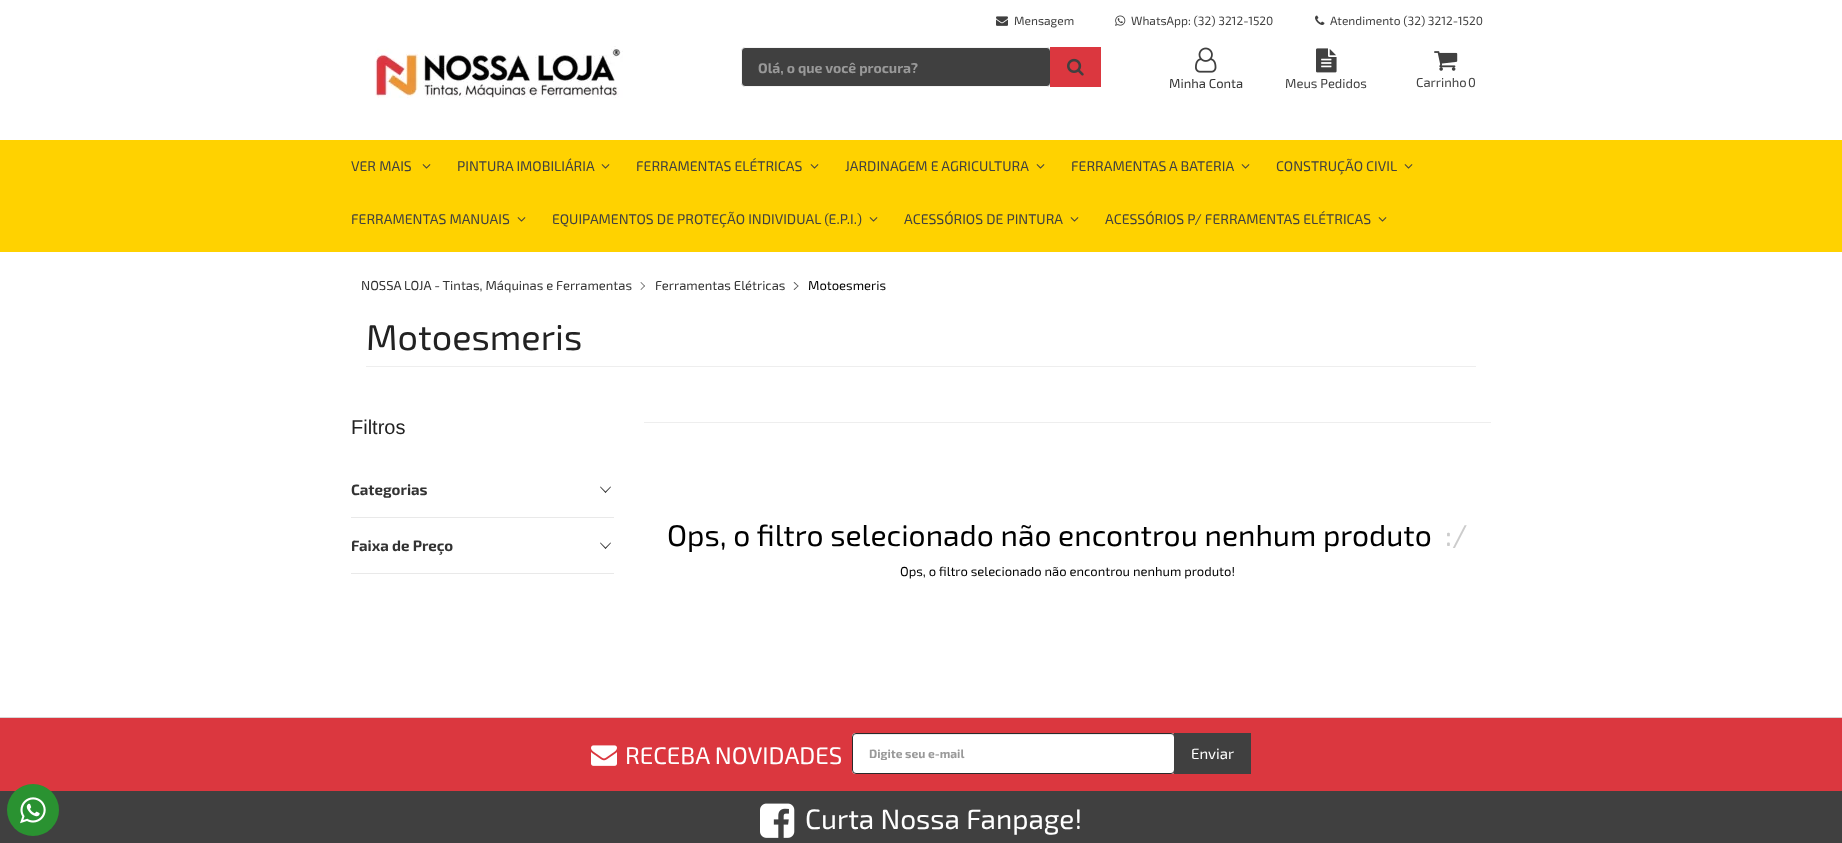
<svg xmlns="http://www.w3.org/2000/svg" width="1842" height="843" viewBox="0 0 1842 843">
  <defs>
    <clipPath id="clip1"><rect x="869" y="746" width="289" height="14"/></clipPath>
  </defs>
  <rect width="100%" height="100%" fill="rgb(255,255,255)"/>
  <image x="996" y="16" width="12" height="10" href="pic1.png"/>
  <text x="1014" y="25" font-family="'Exo 2'" font-size="12" fill="rgb(64,64,64)">Mensagem</text>
  <image x="1115" y="15" width="11" height="11" href="pic2.png"/>
  <text x="1131" y="25" font-family="'Exo 2'" font-size="12" fill="rgb(64,64,64)">WhatsApp: (32) 3212-1520</text>
  <image x="1315" y="15" width="10" height="10" href="pic3.png"/>
  <text x="1330" y="25" font-family="'Exo 2'" font-size="12" fill="rgb(64,64,64)">Atendimento (32) 3212-1520</text>
  <image x="375" y="46" width="248" height="52" href="pic4.png"/>
  <rect x="741.5" y="47.5" width="309" height="39" rx="3.5" fill="rgb(64,64,64)" stroke="rgb(244,244,244)"/>
  <text x="758" y="73" font-family="'Exo 2'" font-size="14" font-weight="bold" fill="rgb(153,153,153)">Olá, o que você procura?</text>
  <rect x="1050" y="47" width="51" height="40" fill="rgb(219,55,63)"/>
  <image x="1067" y="58" width="17" height="18" href="pic5.png"/>
  <image x="1195" y="47" width="22" height="26" href="pic6.png"/>
  <text x="1169" y="88" font-family="'Exo 2'" font-size="13" fill="rgb(51,51,51)">Minha Conta</text>
  <image x="1316" y="48" width="21" height="25" href="pic7.png"/>
  <text x="1285" y="88" font-family="'Exo 2'" font-size="13" fill="rgb(64,64,64)">Meus Pedidos</text>
  <image x="1434" y="51" width="24" height="20" href="pic8.png"/>
  <g font-family="'Exo 2'" font-size="13" fill="rgb(64,64,64)">
    <text x="1416" y="87">Carrinho</text>
    <text x="1468" y="87">0</text>
  </g>
  <rect x="0" y="140" width="1842" height="112" fill="rgb(255,210,0)"/>
  <text x="351" y="171" font-family="'Exo 2'" font-size="14" fill="rgb(64,64,64)">VER MAIS</text>
  <image x="422" y="164" width="9" height="5" href="pic9.png"/>
  <text x="457" y="171" font-family="'Exo 2'" font-size="14" fill="rgb(64,64,64)">PINTURA IMOBILIÁRIA</text>
  <image x="601" y="164" width="9" height="5" href="pic9.png"/>
  <text x="636" y="171" font-family="'Exo 2'" font-size="14" fill="rgb(64,64,64)">FERRAMENTAS ELÉTRICAS</text>
  <image x="810" y="164" width="9" height="5" href="pic9.png"/>
  <text x="845" y="171" font-family="'Exo 2'" font-size="14" fill="rgb(64,64,64)">JARDINAGEM E AGRICULTURA</text>
  <image x="1036" y="164" width="9" height="5" href="pic9.png"/>
  <text x="1071" y="171" font-family="'Exo 2'" font-size="14" fill="rgb(64,64,64)">FERRAMENTAS A BATERIA</text>
  <image x="1241" y="164" width="9" height="5" href="pic9.png"/>
  <text x="1276" y="171" font-family="'Exo 2'" font-size="14" fill="rgb(64,64,64)">CONSTRUÇÃO CIVIL</text>
  <image x="1404" y="164" width="9" height="5" href="pic9.png"/>
  <text x="351" y="224" font-family="'Exo 2'" font-size="14" fill="rgb(64,64,64)">FERRAMENTAS MANUAIS</text>
  <image x="517" y="217" width="9" height="5" href="pic9.png"/>
  <text x="552" y="224" font-family="'Exo 2'" font-size="14" fill="rgb(64,64,64)">EQUIPAMENTOS DE PROTEÇÃO INDIVIDUAL (E.P.I.)</text>
  <image x="869" y="217" width="9" height="5" href="pic9.png"/>
  <text x="904" y="224" font-family="'Exo 2'" font-size="14" fill="rgb(64,64,64)">ACESSÓRIOS DE PINTURA</text>
  <image x="1070" y="217" width="9" height="5" href="pic9.png"/>
  <text x="1105" y="224" font-family="'Exo 2'" font-size="14" fill="rgb(64,64,64)">ACESSÓRIOS P/ FERRAMENTAS ELÉTRICAS</text>
  <image x="1378" y="217" width="9" height="5" href="pic9.png"/>
  <text x="361" y="290" font-family="'Exo 2'" font-size="13" fill="rgb(51,51,51)">NOSSA LOJA - Tintas, Máquinas e Ferramentas</text>
  <path d="M640.5 282.5L641 282L645 286L644.5 286.5Z" fill="rgb(85,85,85)"/>
  <path d="M640.5 289.5L644.5 285.5L645 286L641 290Z" fill="rgb(85,85,85)"/>
  <text x="655" y="290" font-family="'Exo 2'" font-size="13" fill="rgb(51,51,51)">Ferramentas Elétricas</text>
  <path d="M793.5 282.5L794.5 282L798.5 286L798 286.5Z" fill="rgb(85,85,85)"/>
  <path d="M793.5 289.5L798 285.5L798.5 286L794.5 290Z" fill="rgb(85,85,85)"/>
  <text x="808" y="290" font-family="'Exo 2'" font-size="13" fill="rgb(0,0,0)">Motoesmeris</text>
  <text x="366" y="350" font-family="'Exo 2'" font-size="36" fill="rgb(34,34,34)">Motoesmeris</text>
  <rect x="366" y="366" width="1110" height="1" fill="rgb(238,238,238)"/>
  <text x="351" y="434" font-family="Liberation Sans" font-size="20" fill="rgb(34,34,34)">Filtros</text>
  <rect x="351" y="517" width="263" height="1" fill="rgb(233,233,233)"/>
  <text x="351" y="495" font-family="'Exo 2'" font-size="15" font-weight="bold" fill="rgb(51,51,51)">Categorias</text>
  <path d="M610.5 486.5L611 487L605.5 493L605 492Z" fill="rgb(51,51,51)"/>
  <path d="M600.5 486.5L606 492L605.5 493L600 487Z" fill="rgb(51,51,51)"/>
  <rect x="351" y="573" width="263" height="1" fill="rgb(233,233,233)"/>
  <text x="351" y="551" font-family="'Exo 2'" font-size="15" font-weight="bold" fill="rgb(51,51,51)">Faixa de Preço</text>
  <path d="M610.5 542.5L611 543L605.5 549L605 548Z" fill="rgb(51,51,51)"/>
  <path d="M600.5 542.5L606 548L605.5 549L600 543Z" fill="rgb(51,51,51)"/>
  <rect x="644" y="422" width="847" height="1" fill="rgb(238,238,238)"/>
  <text x="667" y="546" font-family="'Exo 2'" font-size="30" fill="rgb(0,0,0)">Ops, o filtro selecionado não encontrou nenhum produto</text>
  <text x="1445" y="546" font-family="'Exo 2'" font-size="30" fill="rgb(204,204,204)">:/</text>
  <text x="900" y="576" font-family="'Exo 2'" font-size="13" fill="rgb(0,0,0)">Ops, o filtro selecionado não encontrou nenhum produto!</text>
  <rect x="0" y="791" width="1842" height="52" fill="rgb(64,64,64)"/>
  <rect x="0" y="717" width="1842" height="1" fill="rgb(214,214,214)"/>
  <rect x="0" y="718" width="1842" height="73" fill="rgb(219,55,63)"/>
  <image x="591" y="745" width="26" height="21" href="pic10.png"/>
  <text x="625" y="764" font-family="'Exo 2'" font-size="24" fill="rgb(255,255,255)">RECEBA NOVIDADES</text>
  <rect x="852" y="733" width="323" height="41" rx="4" fill="rgb(255,255,255)"/>
  <path d="M856 735H1171C1173 735 1174 736 1174 738L1173 735L1172 734H856C854 734 853 736 853 738C853 736 854 735 856 735Z" fill="rgb(236,236,236)"/>
  <rect x="852.5" y="733.5" width="322" height="40" rx="3.5" fill="none" stroke="rgb(42,42,42)"/>
  <g clip-path="url(#clip1)">
    <text x="869" y="758" font-family="'Exo 2'" font-size="12" font-weight="bold" fill="rgb(153,153,153)">Digite seu e-mail</text>
  </g>
  <rect x="1174" y="733" width="77" height="41" fill="rgb(64,64,64)"/>
  <text x="1191" y="759" font-family="'Exo 2'" font-size="15" fill="rgb(255,255,255)">Enviar</text>
  <circle cx="33" cy="810" r="26" fill="rgb(42,146,49)"/>
  <image x="20" y="797" width="26" height="27" href="pic11.png"/>
  <image x="760" y="803" width="35" height="35" href="pic12.png"/>
  <text x="805" y="829" font-family="'Exo 2'" font-size="28" fill="rgb(255,255,255)">Curta Nossa Fanpage!</text>
</svg>
